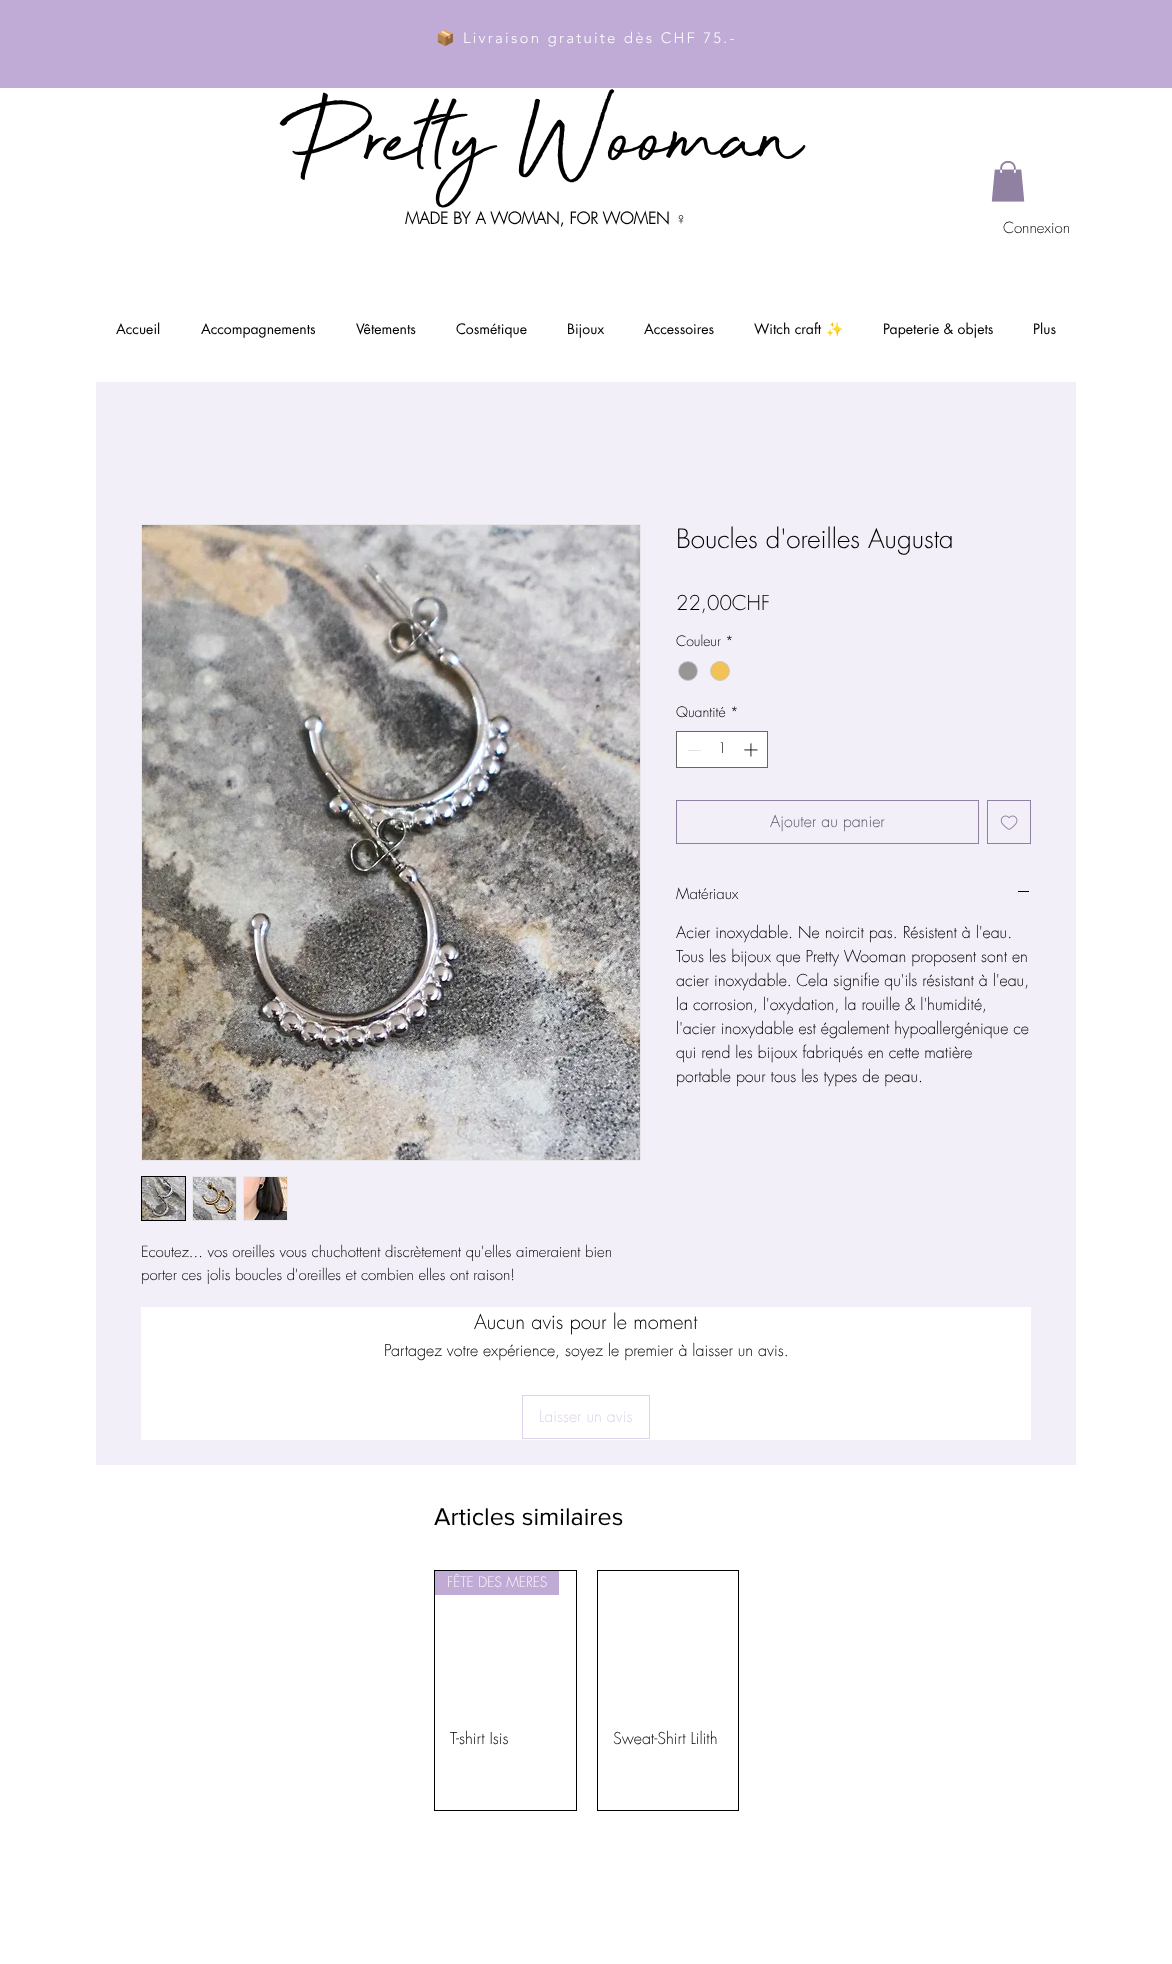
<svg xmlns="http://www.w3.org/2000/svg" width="1172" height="1964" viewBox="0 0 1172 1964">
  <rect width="100%" height="100%" fill="rgb(255,255,255)"/>
  <rect x="0" y="0" width="1172" height="88" fill="rgb(192,171,214)"/>
  <text x="436" y="43" font-family="Noto Color Emoji" font-size="15" letter-spacing="2.25" fill="rgb(252,252,252)">📦</text>
  <text x="463" y="43" font-family="'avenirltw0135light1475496'" font-size="15" font-weight="300" letter-spacing="2.25" fill="rgb(252,252,252)">Livraison gratuite dès CHF 75.-</text>
  <text x="282" y="180" font-family="'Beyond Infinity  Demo'" font-size="120" letter-spacing="-2.4" fill="rgb(0,0,0)">Pretty Wooman</text>
  <image x="991" y="161" width="34" height="41" href="pic1.png"/>
  <text x="405" y="224" font-family="futura" font-size="16" font-weight="bold" fill="rgb(0,0,0)">MADE BY A WOMAN, FOR WOMEN</text>
  <text x="675" y="224" font-family="Liberation Sans" font-size="16" font-weight="bold" fill="rgb(0,0,0)">♀︎</text>
  <text x="1003" y="233" font-family="futura" font-size="15" font-weight="300" fill="rgb(0,0,0)">Connexion</text>
  <g font-family="futura" font-size="14" fill="rgb(0,0,0)">
    <text x="116" y="334">Accueil</text>
    <text x="201" y="334">Accompagnements</text>
    <text x="356" y="334">Vêtements</text>
    <text x="456" y="334">Cosmétique</text>
    <text x="567" y="334">Bijoux</text>
    <text x="644" y="334">Accessoires</text>
    <text x="754" y="334">Witch craft</text>
  </g>
  <text x="826" y="334" font-family="Noto Color Emoji" font-size="14" fill="rgb(0,0,0)">✨</text>
  <g font-family="futura" font-size="14" fill="rgb(0,0,0)">
    <text x="883" y="334">Papeterie &amp; objets</text>
    <text x="1033" y="334">Plus</text>
  </g>
  <rect x="96" y="382" width="980" height="1083" fill="rgb(243,239,248)"/>
  <text x="676" y="548" font-family="futura" font-size="26" font-weight="300" fill="rgb(0,0,0)">Boucles d'oreilles Augusta</text>
  <text x="676" y="610" font-family="futura" font-size="20" font-weight="300" fill="rgb(0,0,0)">22,00CHF</text>
  <g font-family="futura" font-size="14" font-weight="300" fill="rgb(0,0,0)">
    <text x="676" y="646">Couleur</text>
    <text x="725" y="646">*</text>
  </g>
  <circle cx="688" cy="671" r="9.5" fill="rgb(150,150,150)" stroke="rgb(201,201,201)"/>
  <circle cx="720" cy="671" r="9.5" fill="rgb(241,194,86)" stroke="rgb(201,201,201)"/>
  <g font-family="futura" font-size="14" font-weight="300" fill="rgb(0,0,0)">
    <text x="676" y="717">Quantité</text>
    <text x="730" y="717">*</text>
  </g>
  <rect x="676.5" y="731.5" width="91" height="36" fill="rgb(255,255,255)" stroke="rgb(102,102,102)"/>
  <rect x="688" y="750" width="13" height="1" fill="rgb(227,227,227)"/>
  <text x="718" y="753" font-family="futura" font-size="14" font-weight="300" fill="rgb(0,0,0)">1</text>
  <image x="744" y="743" width="14" height="14" href="pic2.png"/>
  <rect x="676.5" y="800.5" width="302" height="43" fill="none" stroke="rgb(144,128,161)"/>
  <text x="770" y="827" font-family="futura" font-size="16" font-weight="300" fill="rgb(96,86,107)">Ajouter au panier</text>
  <rect x="987.5" y="800.5" width="43" height="43" fill="none" stroke="rgb(144,128,161)"/>
  <image x="1000" y="815" width="18" height="15" href="pic3.png"/>
  <text x="676" y="899" font-family="futura" font-size="15" font-weight="300" fill="rgb(0,0,0)">Matériaux</text>
  <rect x="1018" y="891" width="11" height="1" fill="rgb(0,0,0)"/>
  <g font-family="futura" font-size="16" font-weight="300" fill="rgb(0,0,0)">
    <text>
      <tspan x="676" y="938">Acier inoxydable. Ne noircit pas. Résistent à l'eau.</tspan>
      <tspan x="676" y="962">Tous les bijoux que Pretty Wooman proposent sont en</tspan>
      <tspan x="676" y="986">acier inoxydable. Cela signifie qu'ils résistant à l'eau,</tspan>
      <tspan x="676" y="1010">la corrosion, l'oxydation, la rouille &amp; l'humidité,</tspan>
      <tspan x="676" y="1034">l'acier inoxydable est également hypoallergénique ce</tspan>
      <tspan x="676" y="1058">qui rend les bijoux fabriqués en cette matière</tspan>
      <tspan x="676" y="1082">portable pour tous les types de peau.</tspan>
    </text>
  </g>
  <rect x="141.5" y="524.5" width="499" height="636" fill="none" stroke="rgb(232,232,232)"/>
  <image x="142" y="525" width="498" height="635" href="pic4.png"/>
  <rect x="141.5" y="1176.5" width="44" height="44" fill="none" stroke="rgb(0,0,0)"/>
  <image x="142" y="1177" width="43" height="43" href="pic5.png"/>
  <rect x="192" y="1176" width="45" height="45" fill="rgb(232,232,232)"/>
  <image x="193" y="1177" width="43" height="43" href="pic6.png"/>
  <rect x="243" y="1176" width="45" height="45" fill="rgb(232,232,232)"/>
  <image x="244" y="1177" width="43" height="43" href="pic7.png"/>
  <g font-family="futura" font-size="15" font-weight="300" fill="rgb(0,0,0)">
    <text>
      <tspan x="141" y="1257">Ecoutez... vos oreilles vous chuchottent discrètement qu'elles aimeraient bien</tspan>
      <tspan x="141" y="1280">porter ces jolis boucles d'oreilles et combien elles ont raison!</tspan>
    </text>
  </g>
  <rect x="141" y="1307" width="890" height="133" fill="rgb(255,255,255)"/>
  <text x="474" y="1329" font-family="futura" font-size="20" font-weight="300" fill="rgb(0,0,0)">Aucun avis pour le moment</text>
  <text x="384" y="1356" font-family="futura" font-size="16" font-weight="300" fill="rgb(0,0,0)">Partagez votre expérience, soyez le premier à laisser un avis.</text>
  <rect x="522.5" y="1395.5" width="127" height="43" fill="none" stroke="rgb(222,211,235)"/>
  <text x="539" y="1422" font-family="futura" font-size="16" font-weight="300" fill="rgb(222,211,235)">Laisser un avis</text>
  <text x="434" y="1525" font-family="'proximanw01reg'" font-size="25" fill="rgb(0,0,0)">Articles similaires</text>
  <rect x="434.5" y="1570.5" width="142" height="240" fill="none" stroke="rgb(0,0,0)"/>
  <rect x="435" y="1571" width="124" height="24" fill="rgb(192,171,214)"/>
  <text x="447" y="1587" font-family="futura" font-size="14" font-weight="300" fill="rgb(252,252,252)">FÊTE DES MERES</text>
  <text x="450" y="1744" font-family="futura" font-size="16" font-weight="300" fill="rgb(0,0,0)">T-shirt Isis</text>
  <rect x="597.5" y="1570.5" width="141" height="240" fill="none" stroke="rgb(0,0,0)"/>
  <text x="613" y="1744" font-family="futura" font-size="16" font-weight="300" fill="rgb(0,0,0)">Sweat-Shirt Lilith</text>
</svg>
